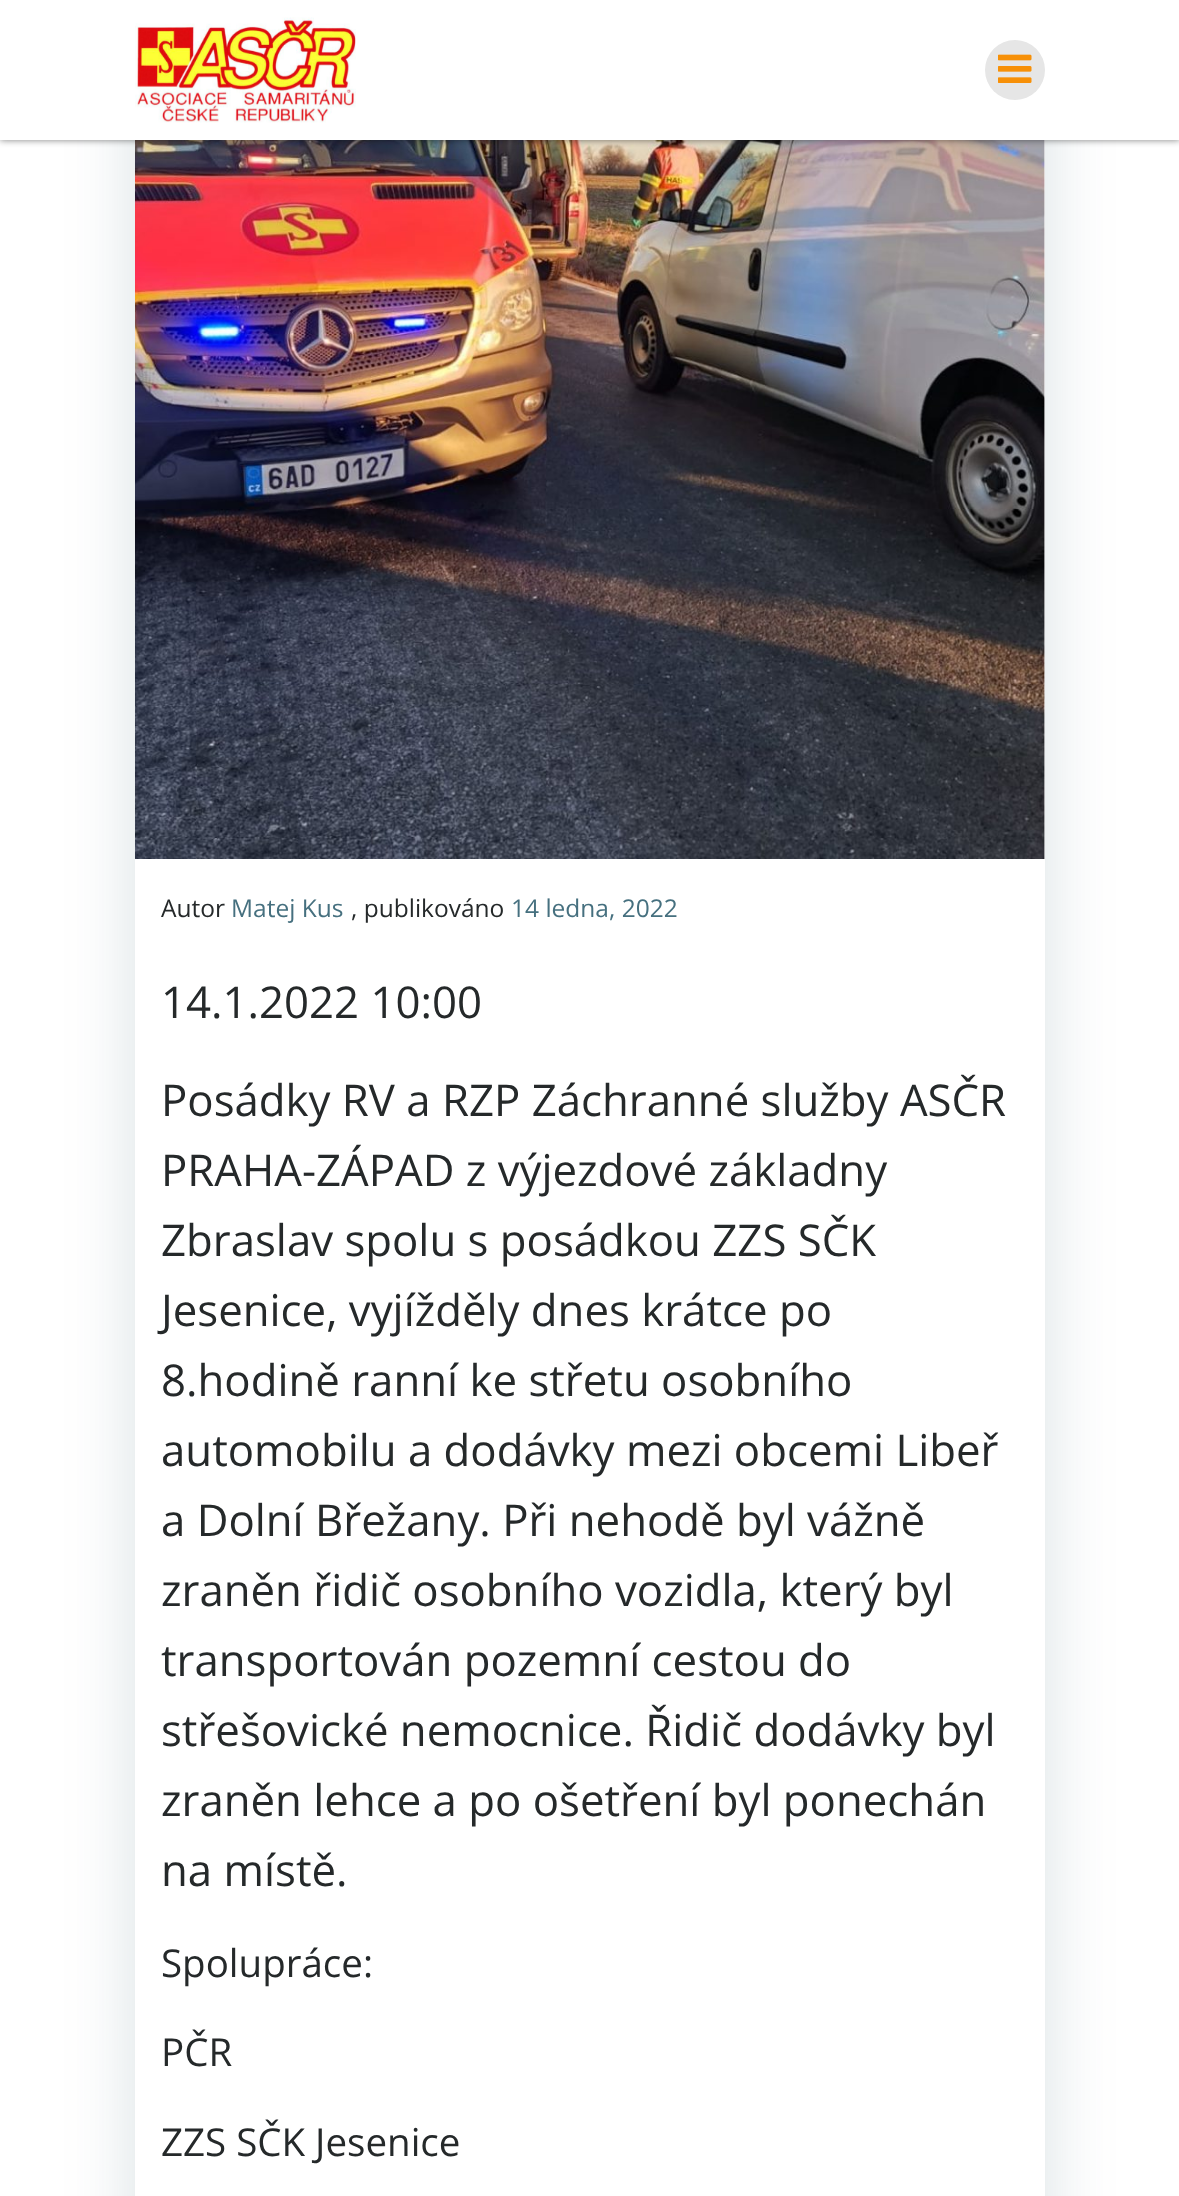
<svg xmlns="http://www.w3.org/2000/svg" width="1179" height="2196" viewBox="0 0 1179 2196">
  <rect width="100%" height="100%" fill="rgb(255,255,255)"/>
  <rect x="135" y="-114" width="910" height="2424" rx="9" fill="rgba(1,51,74,0.15)" filter="blur(35px)"/>
  <rect x="135" y="140" width="910" height="2056" fill="rgb(255,255,255)"/>
  <image x="135" y="140" width="910" height="719" href="pic3.png"/>
  <rect x="0" y="0" width="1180" height="140" fill="rgba(0,0,0,0.5)" filter="blur(3.5px)"/>
  <rect x="0" y="0" width="1179" height="140" fill="rgb(255,255,255)"/>
  <image x="135" y="17" width="221" height="106" href="pic1.png"/>
  <circle cx="1015" cy="70" r="30" fill="rgb(230,230,230)"/>
  <image x="998" y="54" width="34" height="29" href="pic2.png"/>
  <text x="161" y="917" font-family="Open Sans" font-size="24.5" fill="rgb(37,41,42)">Autor</text>
  <text x="231" y="917" font-family="Open Sans" font-size="24.5" fill="rgb(70,112,127)">Matej Kus</text>
  <text x="351" y="917" font-family="Open Sans" font-size="24.5" fill="rgb(37,41,42)">, publikováno</text>
  <text x="511" y="917" font-family="Open Sans" font-size="24.5" fill="rgb(70,112,127)">14 ledna, 2022</text>
  <g font-family="Open Sans" font-size="43.75" fill="rgb(37,41,42)">
    <text x="161" y="1018">14.1.2022 10:00</text>
    <text>
      <tspan x="161" y="1116">Posádky RV a RZP Záchranné služby ASČR</tspan>
      <tspan x="161" y="1186">PRAHA-ZÁPAD z výjezdové základny</tspan>
      <tspan x="161" y="1256">Zbraslav spolu s posádkou ZZS SČK</tspan>
      <tspan x="161" y="1326">Jesenice, vyjížděly dnes krátce po</tspan>
      <tspan x="161" y="1396">8.hodině ranní ke střetu osobního</tspan>
      <tspan x="161" y="1466">automobilu a dodávky mezi obcemi Libeř</tspan>
      <tspan x="161" y="1536">a Dolní Břežany. Při nehodě byl vážně</tspan>
      <tspan x="161" y="1606">zraněn řidič osobního vozidla, který byl</tspan>
      <tspan x="161" y="1676">transportován pozemní cestou do</tspan>
      <tspan x="161" y="1746">střešovické nemocnice. Řidič dodávky byl</tspan>
      <tspan x="161" y="1816">zraněn lehce a po ošetření byl ponechán</tspan>
      <tspan x="161" y="1886">na místě.</tspan>
    </text>
  </g>
  <g font-family="Open Sans" font-size="38.5" fill="rgb(37,41,42)">
    <text x="161" y="1977">Spolupráce:</text>
    <text x="161" y="2066">PČR</text>
    <text x="161" y="2156">ZZS SČK Jesenice</text>
  </g>
</svg>
